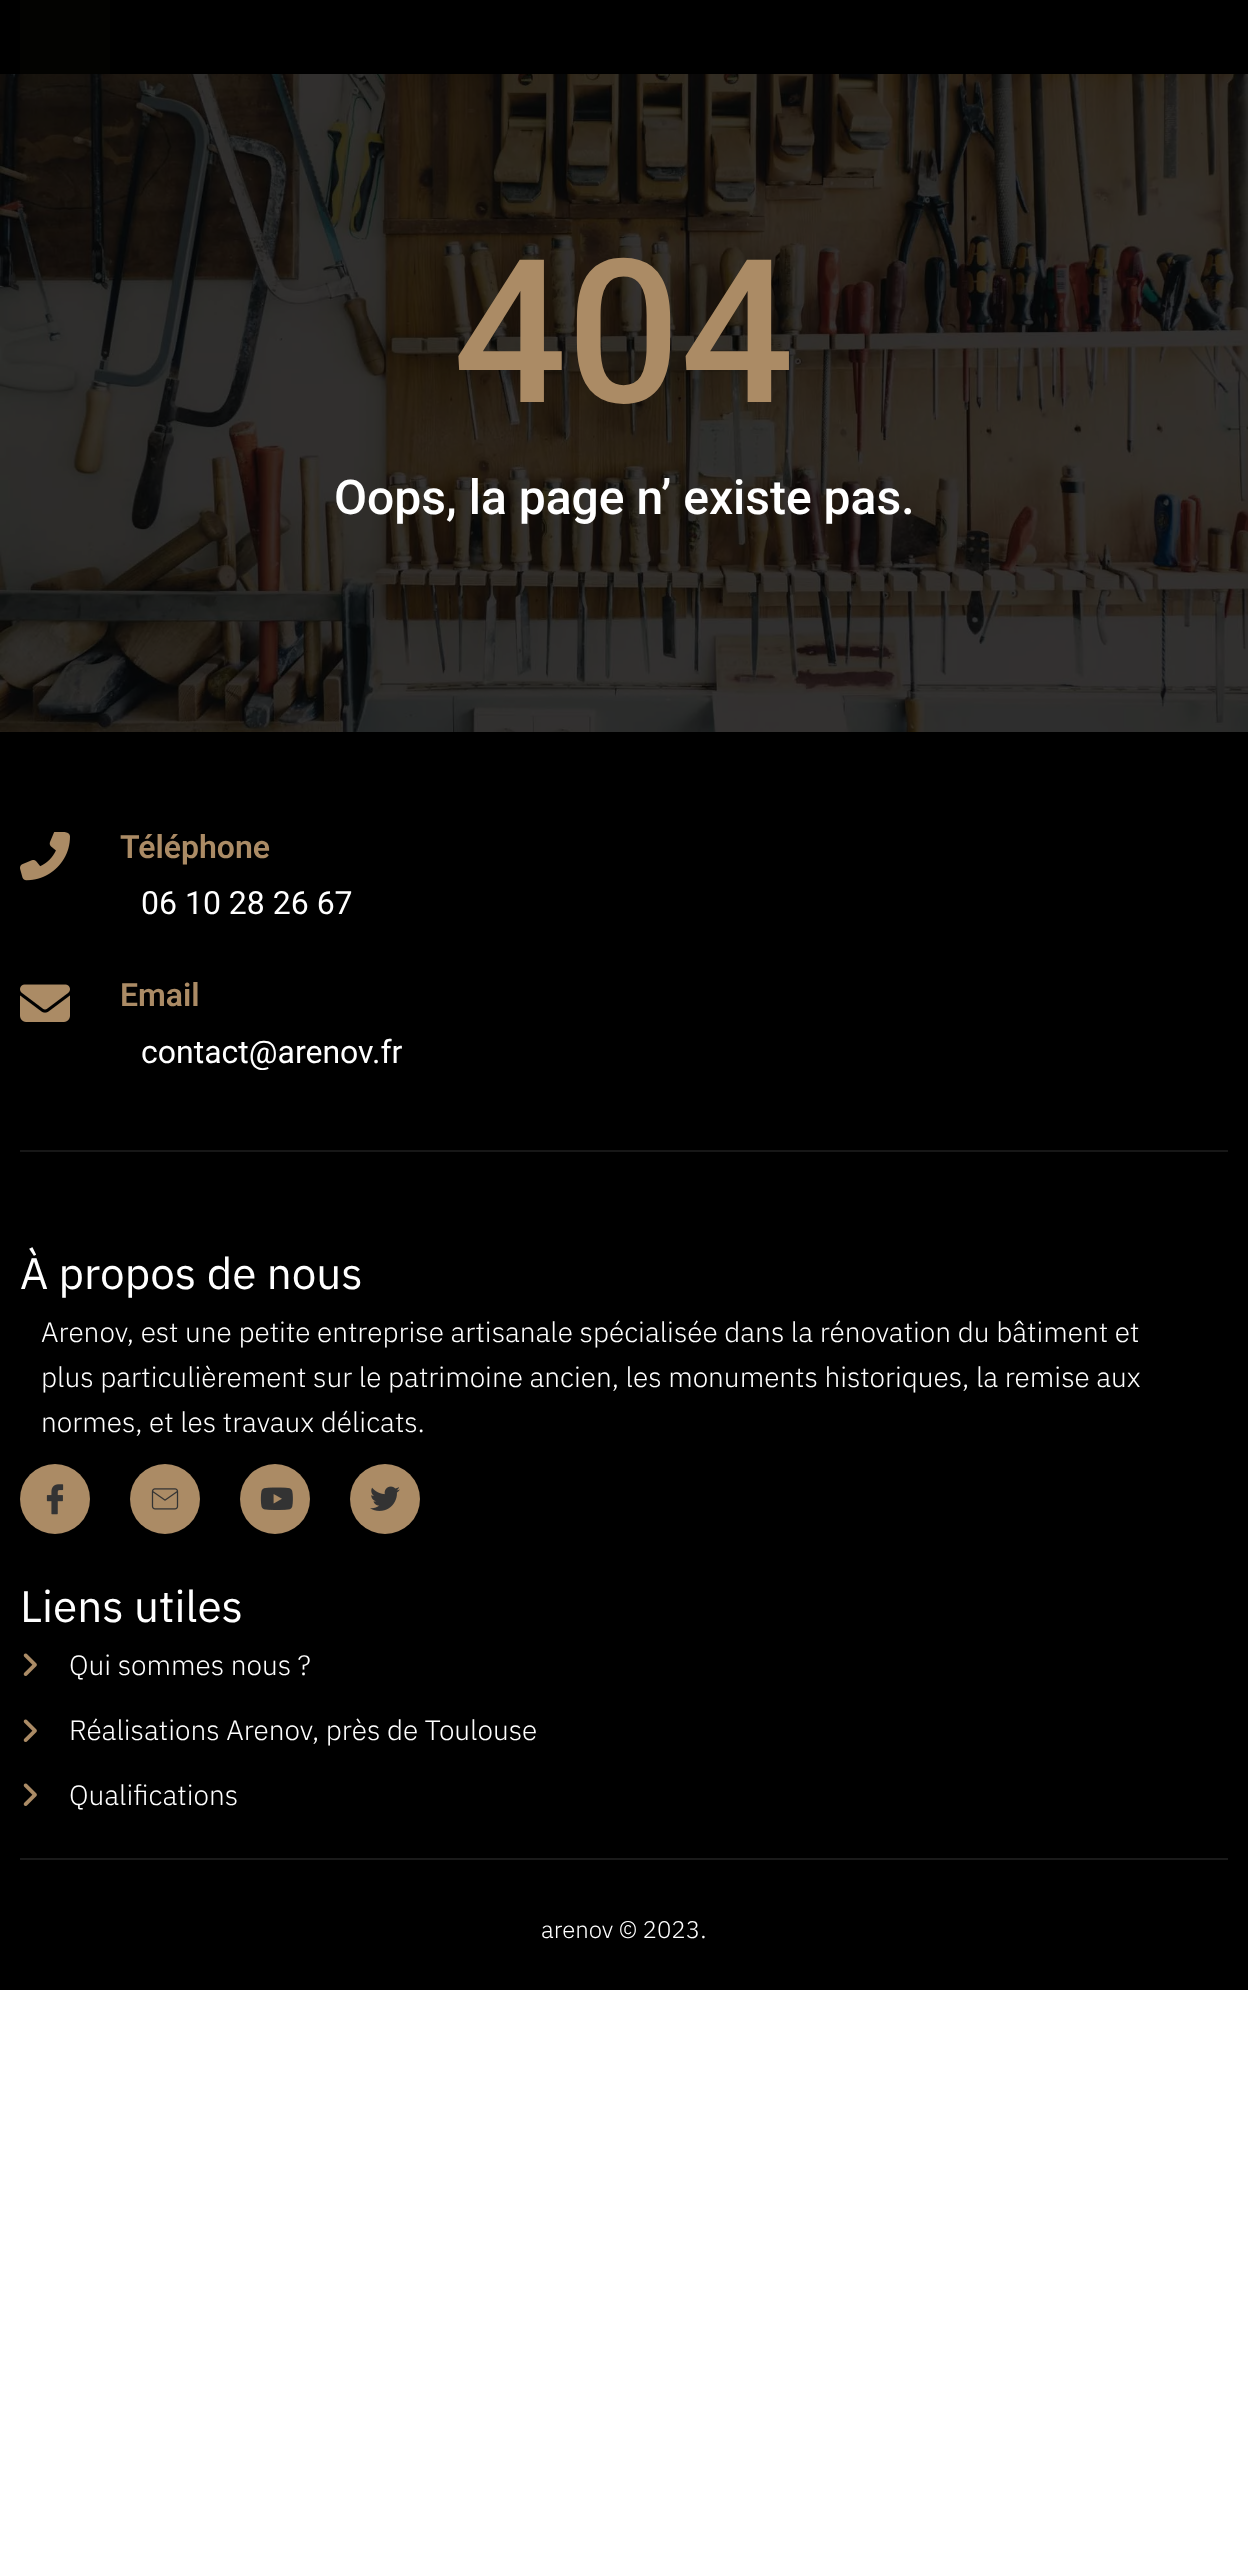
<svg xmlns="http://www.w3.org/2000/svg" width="1248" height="2563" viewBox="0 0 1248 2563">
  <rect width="100%" height="100%" fill="rgb(255,255,255)"/>
  <rect x="0" y="0" width="1248" height="74" fill="rgb(0,0,0)"/>
  <rect x="20" y="0" width="90" height="74" fill="rgb(3,3,1)"/>
  <image x="0" y="74" width="1248" height="658" href="pic1.png"/>
  <text x="453" y="402" font-family="Roboto" font-size="200" font-weight="500" fill="rgb(171,139,101)">404</text>
  <text x="334" y="514" font-family="Roboto" font-size="48" font-weight="500" fill="rgb(255,255,255)">Oops, la page n’ existe pas.</text>
  <rect x="0" y="732" width="1248" height="1258" fill="rgb(0,0,0)"/>
  <rect x="20" y="1150" width="1208" height="2" fill="rgb(23,23,23)"/>
  <image x="20" y="832" width="50" height="49" href="pic2.png"/>
  <text x="120" y="858" font-family="Roboto" font-size="32" font-weight="600" fill="rgb(171,139,101)">Téléphone</text>
  <text x="141" y="914" font-family="Roboto" font-size="32" fill="rgb(255,255,255)">06 10 28 26 67</text>
  <image x="20" y="984" width="50" height="38" href="pic3.png"/>
  <text x="120" y="1006" font-family="Roboto" font-size="32" font-weight="600" fill="rgb(171,139,101)">Email</text>
  <text x="141" y="1063" font-family="Roboto" font-size="32" fill="rgb(255,255,255)">contact@arenov.fr</text>
  <text x="20" y="1289" font-family="IBM Plex Sans" font-size="44" fill="rgb(255,255,255)">À propos de nous</text>
  <g font-family="IBM Plex Sans" font-size="28" font-weight="300" fill="rgb(255,255,255)">
    <text>
      <tspan x="41" y="1342">Arenov, est une petite entreprise artisanale spécialisée dans la rénovation du bâtiment et</tspan>
      <tspan x="41" y="1387">plus particulièrement sur le patrimoine ancien, les monuments historiques, la remise aux</tspan>
      <tspan x="41" y="1432">normes, et les travaux délicats.</tspan>
    </text>
  </g>
  <circle cx="55" cy="1499" r="35" fill="rgb(171,139,101)"/>
  <image x="46" y="1484" width="18" height="31" href="pic4.png"/>
  <circle cx="165" cy="1499" r="35" fill="rgb(171,139,101)"/>
  <image x="151" y="1488" width="28" height="22" href="pic5.png"/>
  <circle cx="275" cy="1499" r="35" fill="rgb(171,139,101)"/>
  <image x="260" y="1487" width="33" height="23" href="pic6.png"/>
  <circle cx="385" cy="1499" r="35" fill="rgb(171,139,101)"/>
  <image x="370" y="1486" width="30" height="25" href="pic7.png"/>
  <text x="20" y="1622" font-family="IBM Plex Sans" font-size="44" fill="rgb(255,255,255)">Liens utiles</text>
  <image x="23" y="1653" width="14" height="23" href="pic8.png"/>
  <text x="69" y="1675" font-family="IBM Plex Sans" font-size="28" font-weight="300" fill="rgb(255,255,255)">Qui sommes nous ?</text>
  <image x="23" y="1719" width="14" height="23" href="pic8.png"/>
  <text x="69" y="1740" font-family="IBM Plex Sans" font-size="28" font-weight="300" fill="rgb(255,255,255)">Réalisations Arenov, près de Toulouse</text>
  <image x="23" y="1783" width="14" height="23" href="pic8.png"/>
  <text x="69" y="1805" font-family="IBM Plex Sans" font-size="28" font-weight="300" fill="rgb(255,255,255)">Qualifications</text>
  <rect x="20" y="1858" width="1208" height="2" fill="rgb(26,26,26)"/>
  <text x="541" y="1938" font-family="IBM Plex Sans" font-size="24" font-weight="300" fill="rgb(255,255,255)">arenov © 2023.</text>
</svg>
